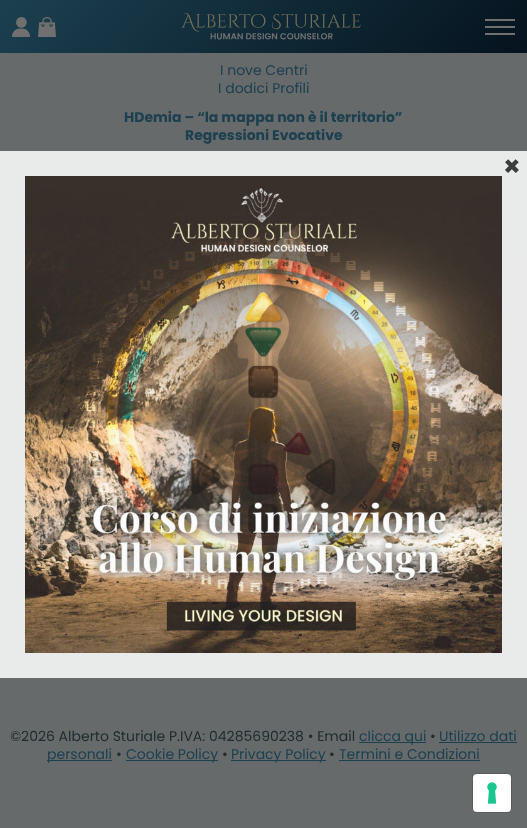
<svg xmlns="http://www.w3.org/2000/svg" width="527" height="828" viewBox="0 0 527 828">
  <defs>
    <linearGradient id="g1" gradientUnits="userSpaceOnUse" x1="118" y1="-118" x2="409" y2="172"><stop offset="0" stop-color="rgb(28,64,80)"/><stop offset="1" stop-color="rgb(5,19,30)"/></linearGradient>
  </defs>
  <rect width="100%" height="100%" fill="rgb(103,106,106)"/>
  <rect x="0" y="0" width="527" height="53" fill="url(#g1)"/>
  <image x="12" y="17" width="18" height="20" href="pic1.png"/>
  <image x="38" y="17" width="18" height="20" href="pic2.png"/>
  <image x="181" y="13" width="180" height="27" href="pic3.png"/>
  <rect x="485" y="19" width="30" height="2" fill="rgb(112,112,112)"/>
  <rect x="485" y="26" width="30" height="2" fill="rgb(112,112,112)"/>
  <rect x="485" y="33" width="30" height="2" fill="rgb(112,112,112)"/>
  <g font-family="Poppins" font-size="14" fill="rgb(28,64,80)">
    <text x="220" y="75">I nove Centri</text>
    <text x="218" y="93">I dodici Profili</text>
  </g>
  <g font-family="Poppins" font-size="14" font-weight="bold" fill="rgb(28,64,80)">
    <text x="124" y="122">HDemia – “la mappa non è il territorio”</text>
    <text x="185" y="140">Regressioni Evocative</text>
  </g>
  <text x="10" y="741" font-family="Poppins" font-size="14" fill="rgb(33,44,48)">©2026 Alberto Sturiale P.IVA: 04285690238 • Email</text>
  <rect x="359" y="742" width="67" height="1" fill="rgb(28,64,80)"/>
  <text x="359" y="741" font-family="Poppins" font-size="14" fill="rgb(28,64,80)">clicca qui</text>
  <text x="430" y="741" font-family="Poppins" font-size="14" fill="rgb(33,44,48)">•</text>
  <text x="439" y="741" font-family="Poppins" font-size="14" fill="rgb(28,64,80)">Utilizzo dati</text>
  <rect x="439" y="742" width="78" height="1" fill="rgb(28,64,80)"/>
  <rect x="47" y="760" width="65" height="1" fill="rgb(28,64,80)"/>
  <text x="47" y="759" font-family="Poppins" font-size="14" fill="rgb(28,64,80)">personali</text>
  <text x="116" y="759" font-family="Poppins" font-size="14" fill="rgb(33,44,48)">•</text>
  <rect x="126" y="760" width="92" height="1" fill="rgb(28,64,80)"/>
  <text x="126" y="759" font-family="Poppins" font-size="14" fill="rgb(28,64,80)">Cookie Policy</text>
  <text x="222" y="759" font-family="Poppins" font-size="14" fill="rgb(33,44,48)">•</text>
  <rect x="231" y="760" width="95" height="1" fill="rgb(28,64,80)"/>
  <text x="231" y="759" font-family="Poppins" font-size="14" fill="rgb(28,64,80)">Privacy Policy</text>
  <text x="329" y="759" font-family="Poppins" font-size="14" fill="rgb(33,44,48)">•</text>
  <text x="339" y="759" font-family="Poppins" font-size="14" fill="rgb(28,64,80)">Termini e Condizioni</text>
  <rect x="339" y="760" width="141" height="1" fill="rgb(28,64,80)"/>
  <rect x="0" y="151" width="527" height="527" fill="rgba(255,255,255,0.86)"/>
  <text x="503" y="176" font-family="Poppins" font-size="28" font-weight="bold" fill="rgb(58,60,61)">×</text>
  <image x="25" y="176" width="477" height="477" href="pic4.png"/>
  <rect x="472.5" y="773.5" width="39" height="39" rx="4.5" fill="none" stroke="rgb(87,90,90)"/>
  <rect x="473" y="774" width="38" height="38" rx="4" fill="rgb(255,255,255)"/>
  <image x="487" y="782" width="10" height="22" href="pic5.png"/>
</svg>
